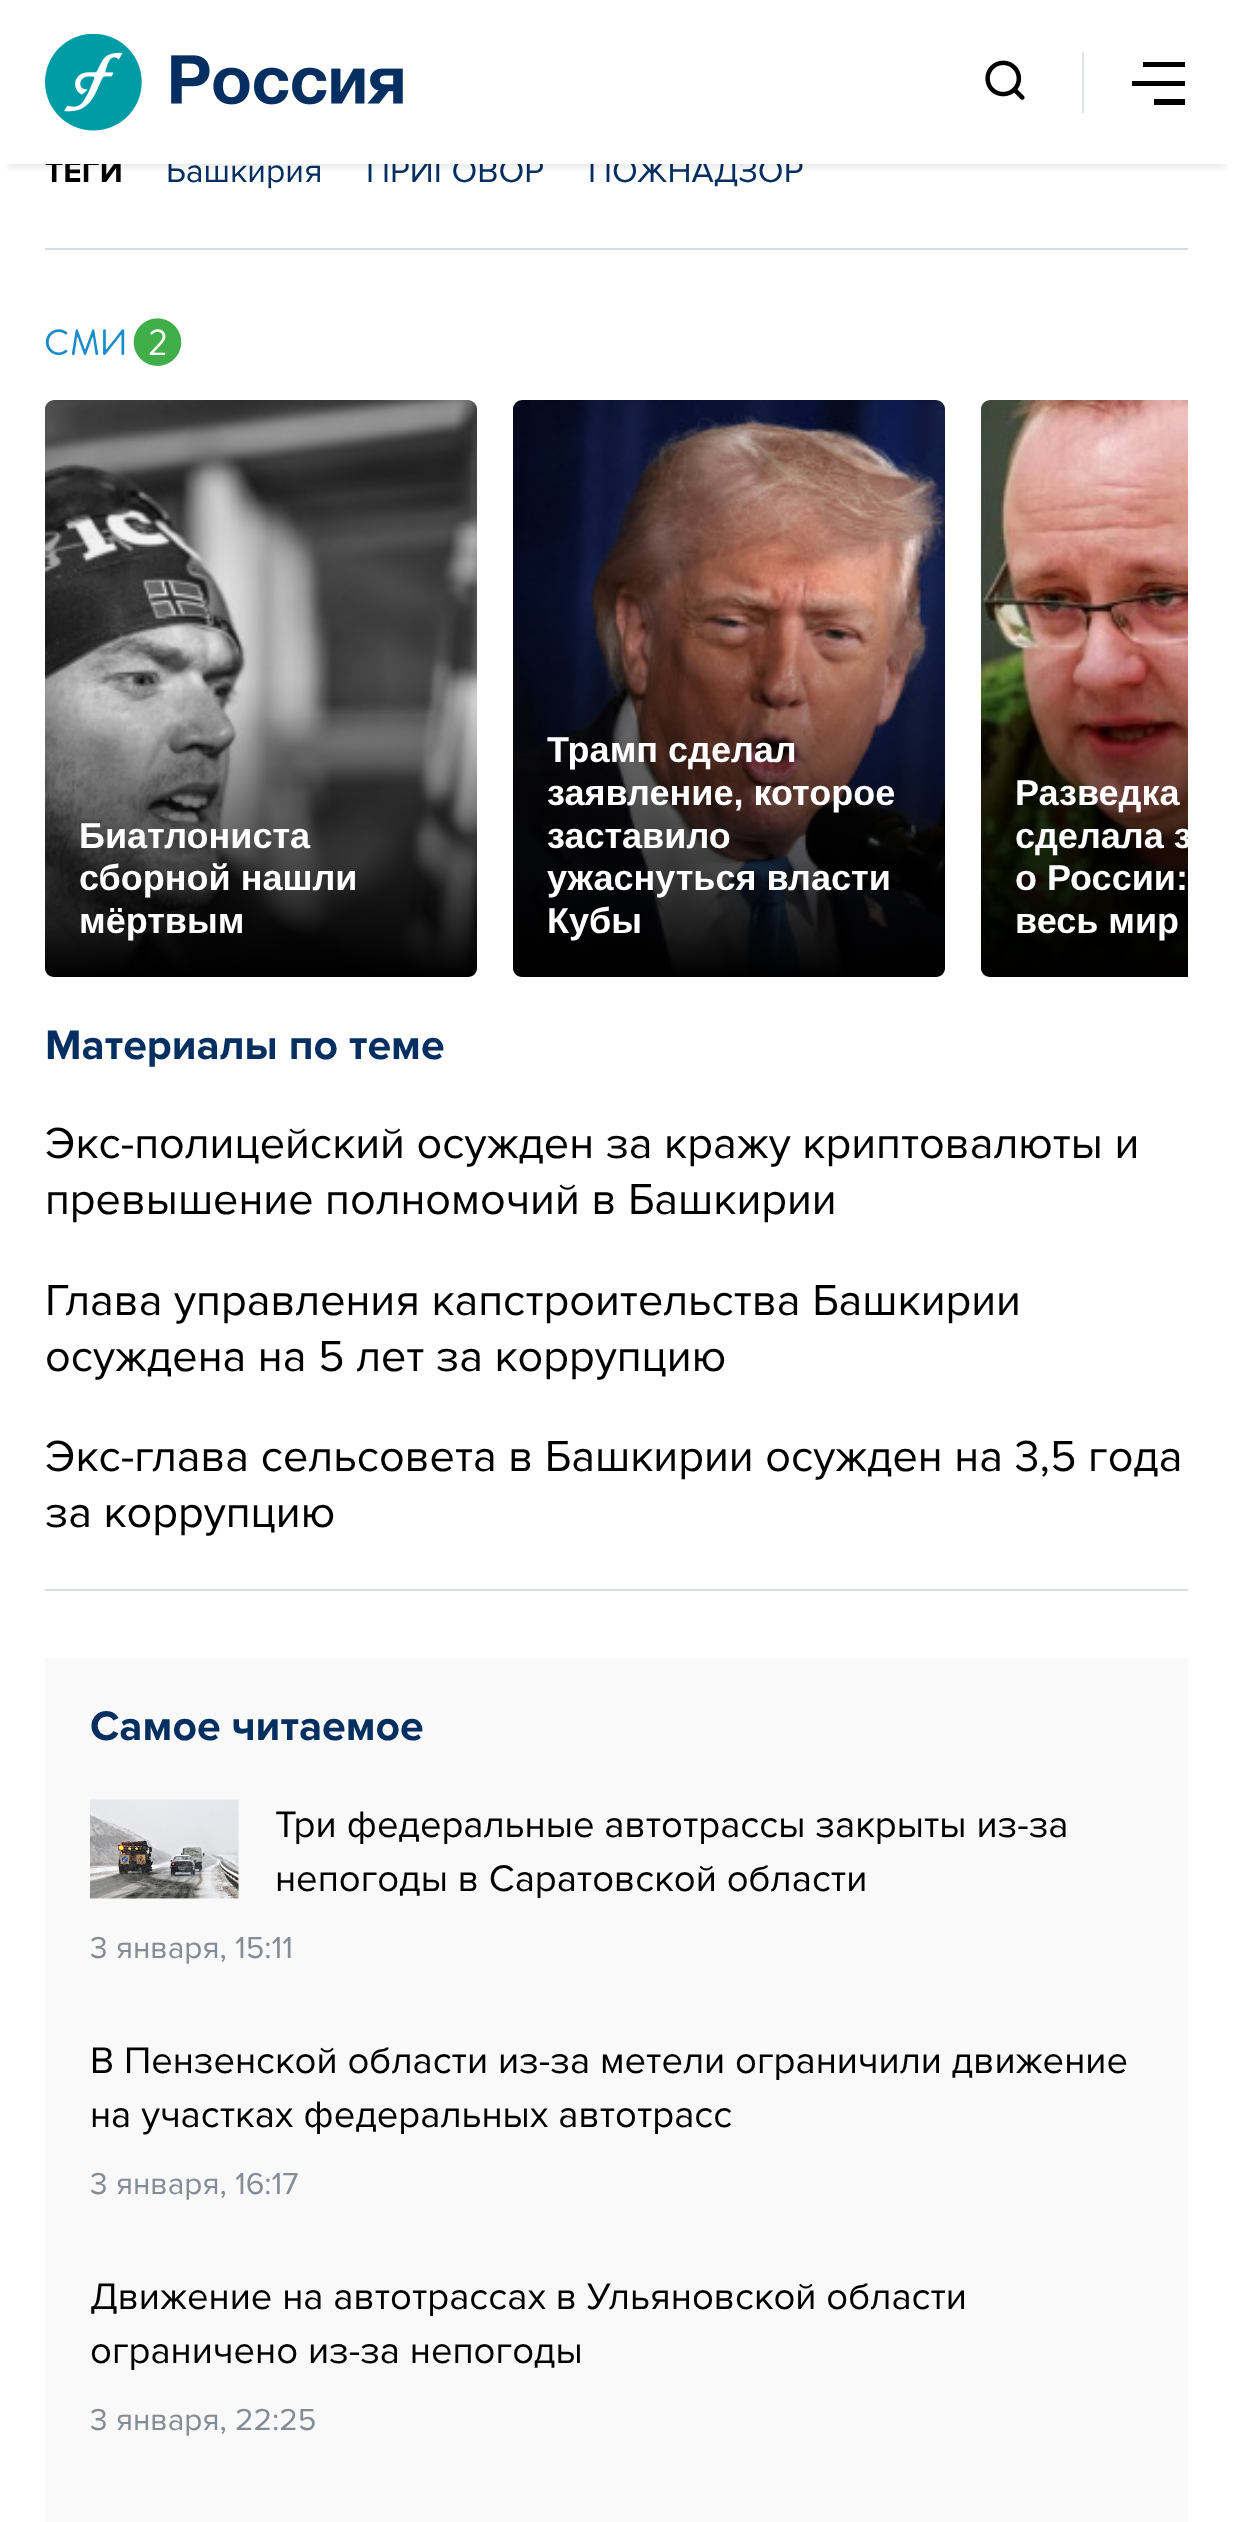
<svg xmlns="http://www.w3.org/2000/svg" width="1233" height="2522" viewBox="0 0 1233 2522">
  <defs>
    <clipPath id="clip1"><rect x="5" y="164" width="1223" height="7"/></clipPath>
    <linearGradient id="g1" gradientUnits="userSpaceOnUse" x1="261" y1="977" x2="261" y2="680"><stop offset="0" stop-color="rgb(0,0,0)"/><stop offset="1" stop-color="rgb(0,0,0)" stop-opacity="0"/></linearGradient>
    <clipPath id="clip2"><rect x="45" y="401" width="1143" height="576"/></clipPath>
    <linearGradient id="g2" gradientUnits="userSpaceOnUse" x1="729" y1="977" x2="729" y2="594"><stop offset="0" stop-color="rgb(0,0,0)"/><stop offset="1" stop-color="rgb(0,0,0)" stop-opacity="0"/></linearGradient>
    <linearGradient id="g3" gradientUnits="userSpaceOnUse" x1="1197" y1="977" x2="1197" y2="637"><stop offset="0" stop-color="rgb(0,0,0)"/><stop offset="1" stop-color="rgb(0,0,0)" stop-opacity="0"/></linearGradient>
    <clipPath id="clip3"><rect x="45" y="401" width="1143" height="576"/></clipPath>
  </defs>
  <rect width="100%" height="100%" fill="rgb(255,255,255)"/>
  <text x="45" y="182" font-family="Proxima Nova" font-size="31.5" font-weight="bold" fill="rgb(0,0,0)">ТЕГИ</text>
  <g font-family="Proxima Nova" font-size="33.75" fill="rgb(4,47,96)">
    <text x="166" y="182">Башкирия</text>
    <text x="366" y="182">ПРИГОВОР</text>
    <text x="588" y="182">ПОЖНАДЗОР</text>
  </g>
  <rect x="45" y="159" width="757" height="5" fill="rgb(255,255,255)"/>
  <g clip-path="url(#clip1)">
    <rect x="7" y="16" width="1219" height="151" fill="rgba(0,0,0,0.1)" filter="blur(4.5px)"/>
  </g>
  <image x="45" y="34" width="358" height="97" href="pic1.png"/>
  <rect x="1082" y="52" width="2" height="61" fill="rgb(222,226,233)"/>
  <image x="985" y="60" width="40" height="40" href="pic2.png"/>
  <rect x="1143" y="62" width="42" height="5" fill="rgb(0,0,0)"/>
  <rect x="1132" y="81" width="53" height="5" fill="rgb(0,0,0)"/>
  <rect x="1154" y="99" width="31" height="6" fill="rgb(0,0,0)"/>
  <rect x="45" y="248" width="1143" height="2" fill="rgb(217,220,224)"/>
  <image x="45" y="318" width="137" height="48" href="pic3.png"/>
  <image x="45" y="400" width="432" height="575" href="pic4.png"/>
  <path d="M45 680H477V968C477 973 473 977 468 977H54C49 977 45 973 45 968Z" fill="url(#g1)"/>
  <g clip-path="url(#clip2)">
    <rect x="-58" y="605" width="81" height="153" rx="7" fill="rgb(0,0,0)" filter="blur(17px)"/>
  </g>
  <g font-family="Liberation Sans" font-size="36" font-weight="bold" fill="rgb(255,255,255)">
    <text>
      <tspan x="79" y="848">Биатлониста</tspan>
      <tspan x="79" y="890">сборной нашли</tspan>
      <tspan x="79" y="933">мёртвым</tspan>
    </text>
  </g>
  <image x="513" y="400" width="432" height="575" href="pic5.png"/>
  <path d="M513 594H945V968C945 973 941 977 936 977H522C517 977 513 973 513 968Z" fill="url(#g2)"/>
  <g font-family="Liberation Sans" font-size="36" font-weight="bold" fill="rgb(255,255,255)">
    <text>
      <tspan x="547" y="762">Трамп сделал</tspan>
      <tspan x="547" y="805">заявление, которое</tspan>
      <tspan x="547" y="848">заставило</tspan>
      <tspan x="547" y="890">ужаснуться власти</tspan>
      <tspan x="547" y="933">Кубы</tspan>
    </text>
  </g>
  <image x="981" y="400" width="207" height="575" href="pic6.png"/>
  <path d="M981 637H1188V977H990C985 977 981 973 981 968Z" fill="url(#g3)"/>
  <text x="1015" y="805" font-family="Liberation Sans" font-size="36" font-weight="bold" fill="rgb(255,255,255)">Разведка</text>
  <g clip-path="url(#clip3)">
    <text x="1015" y="848" font-family="Liberation Sans" font-size="36" font-weight="bold" fill="rgb(255,255,255)">сделала з</text>
  </g>
  <g font-family="Liberation Sans" font-size="36" font-weight="bold" fill="rgb(255,255,255)">
    <text>
      <tspan x="1015" y="890">о России:</tspan>
      <tspan x="1015" y="933">весь мир</tspan>
    </text>
  </g>
  <rect x="45" y="1589" width="1143" height="2" fill="rgb(217,220,224)"/>
  <text x="45" y="1059" font-family="Proxima Nova" font-size="42.75" font-weight="bold" fill="rgb(4,47,96)">Материалы по теме</text>
  <g font-family="Proxima Nova" font-size="45" fill="rgb(0,0,0)">
    <text>
      <tspan x="45" y="1158">Экс-полицейский осужден за кражу криптовалюты и</tspan>
      <tspan x="45" y="1214">превышение полномочий в Башкирии</tspan>
    </text>
    <text>
      <tspan x="45" y="1315">Глава управления капстроительства Башкирии</tspan>
      <tspan x="45" y="1371">осуждена на 5 лет за коррупцию</tspan>
    </text>
    <text>
      <tspan x="45" y="1471">Экс-глава сельсовета в Башкирии осужден на 3,5 года</tspan>
      <tspan x="45" y="1527">за коррупцию</tspan>
    </text>
  </g>
  <rect x="45" y="1658" width="1143" height="864" fill="rgb(249,249,249)"/>
  <text x="90" y="1740" font-family="Proxima Nova" font-size="42.75" font-weight="bold" fill="rgb(4,47,96)">Самое читаемое</text>
  <image x="90" y="1799" width="149" height="100" href="pic7.png"/>
  <g font-family="Proxima Nova" font-size="38.25" fill="rgb(0,0,0)">
    <text>
      <tspan x="275" y="1837">Три федеральные автотрассы закрыты из-за</tspan>
      <tspan x="275" y="1891">непогоды в Саратовской области</tspan>
    </text>
  </g>
  <text x="90" y="1958" font-family="Proxima Nova" font-size="31.5" fill="rgb(133,140,149)">3 января, 15:11</text>
  <g font-family="Proxima Nova" font-size="38.25" fill="rgb(0,0,0)">
    <text>
      <tspan x="90" y="2073">В Пензенской области из-за метели ограничили движение</tspan>
      <tspan x="90" y="2127">на участках федеральных автотрасс</tspan>
    </text>
  </g>
  <text x="90" y="2194" font-family="Proxima Nova" font-size="31.5" fill="rgb(133,140,149)">3 января, 16:17</text>
  <g font-family="Proxima Nova" font-size="38.25" fill="rgb(0,0,0)">
    <text>
      <tspan x="90" y="2309">Движение на автотрассах в Ульяновской области</tspan>
      <tspan x="90" y="2363">ограничено из-за непогоды</tspan>
    </text>
  </g>
  <text x="90" y="2430" font-family="Proxima Nova" font-size="31.5" fill="rgb(133,140,149)">3 января, 22:25</text>
</svg>
